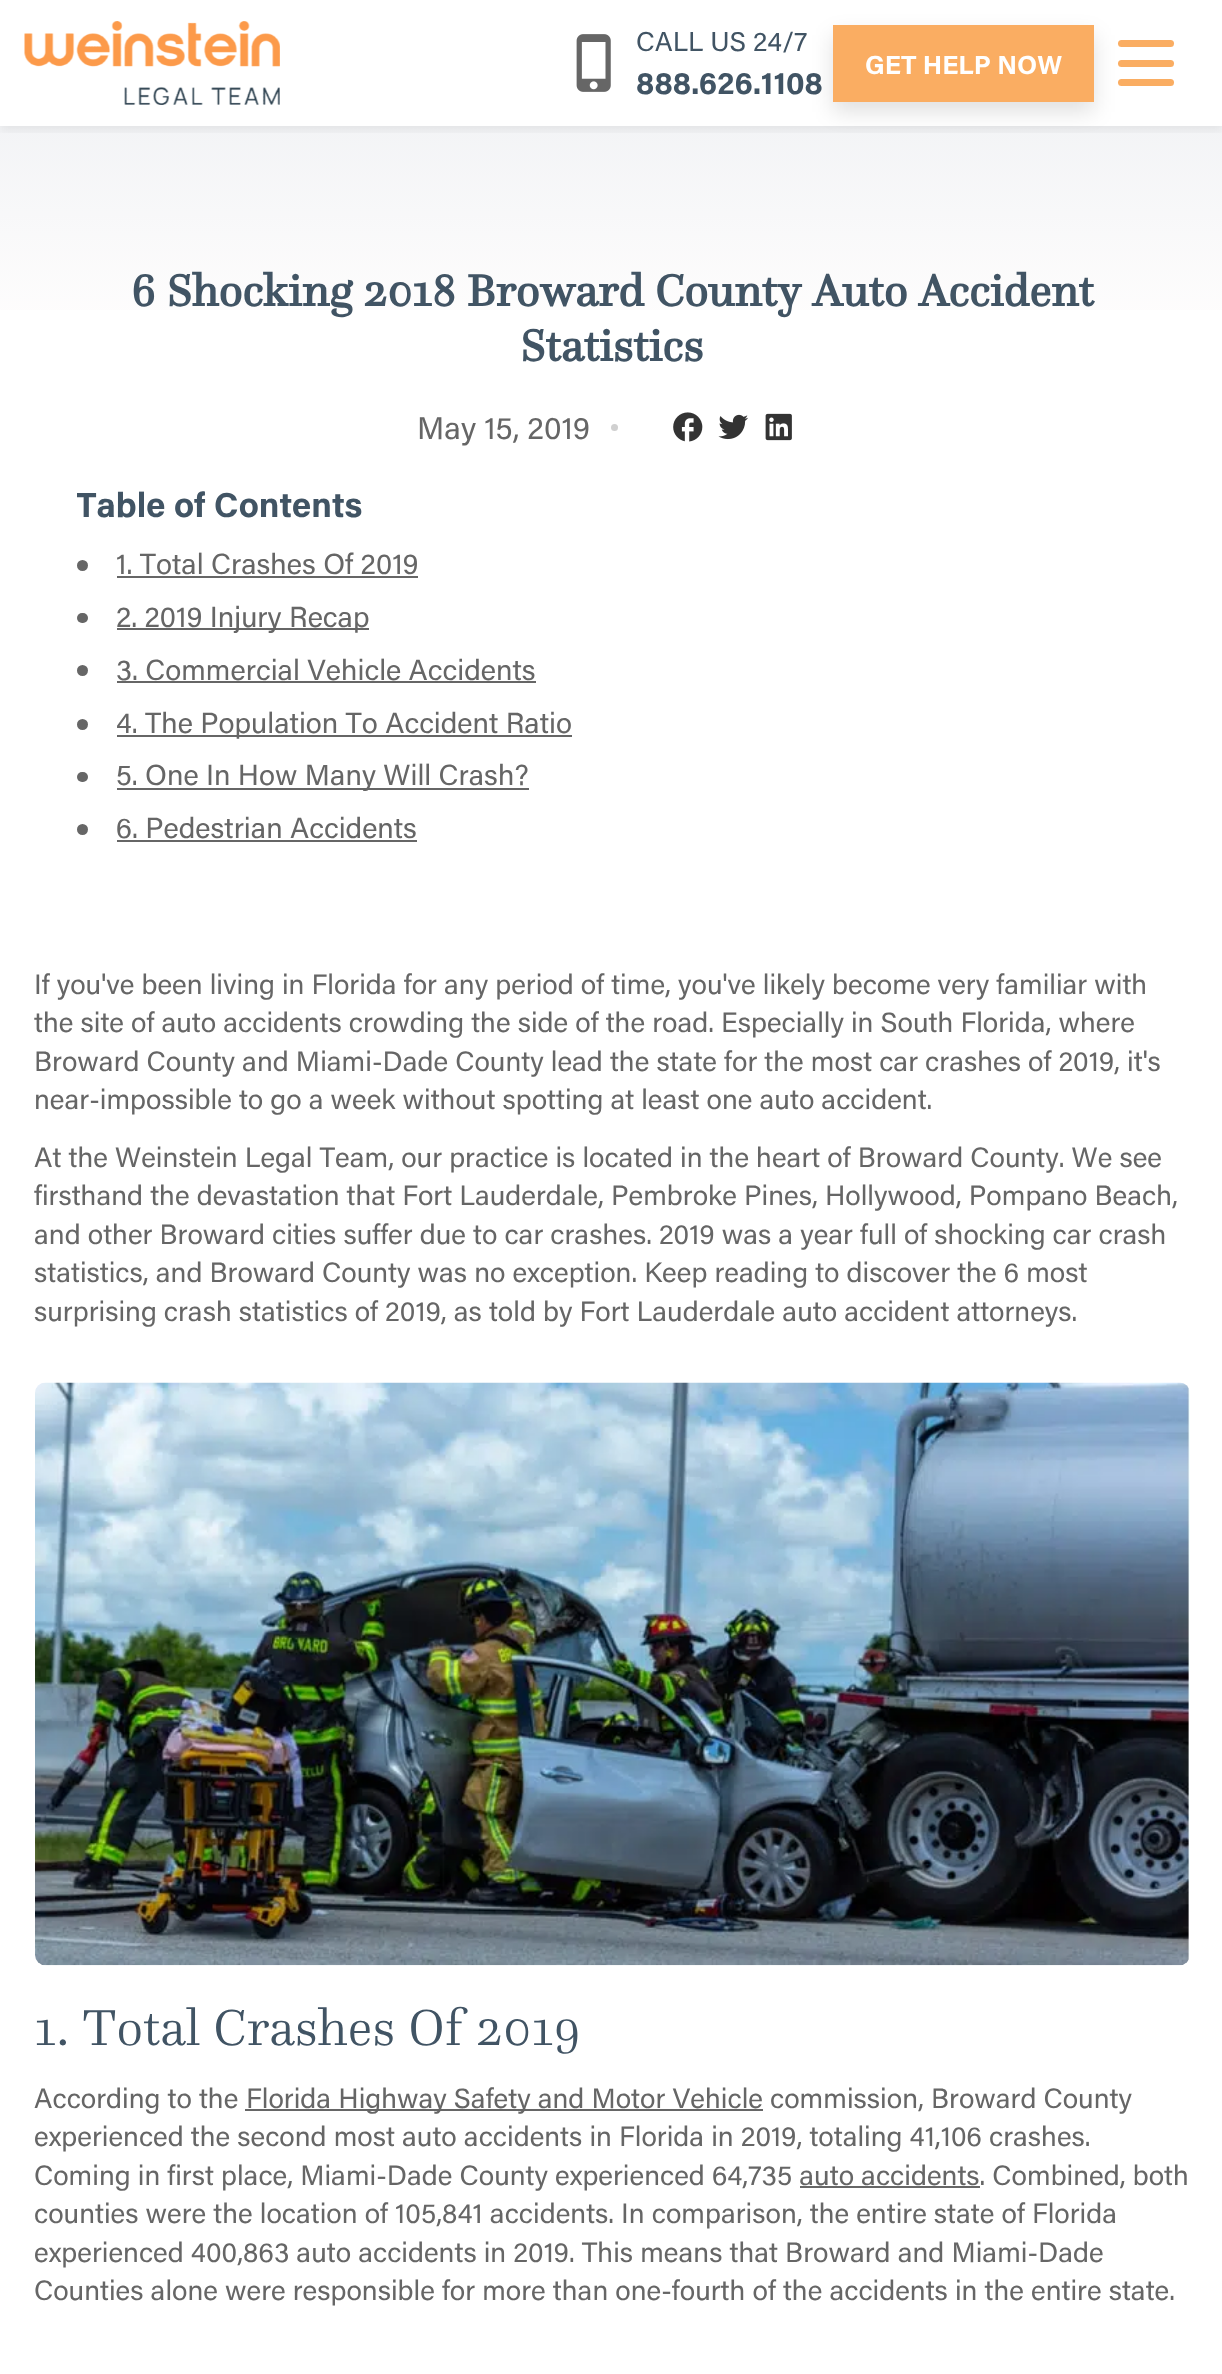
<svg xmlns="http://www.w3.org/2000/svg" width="1222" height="2374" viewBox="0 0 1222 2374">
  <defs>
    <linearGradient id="g1" gradientUnits="userSpaceOnUse" x1="612" y1="126" x2="612" y2="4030"><stop offset="0" stop-color="rgb(243,244,246)"/><stop offset="0.05" stop-color="rgb(254,253,253)"/></linearGradient>
    <clipPath id="clip1"><rect x="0" y="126" width="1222" height="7"/></clipPath>
    <clipPath id="clip2"><rect x="77" y="481" width="1071" height="380"/></clipPath>
  </defs>
  <rect width="100%" height="100%" fill="rgb(255,255,255)"/>
  <rect x="0" y="126" width="1222" height="184" fill="url(#g1)"/>
  <g clip-path="url(#clip1)">
    <rect x="0" y="5" width="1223" height="126" fill="rgba(0,0,0,0.06)" filter="blur(5px)"/>
  </g>
  <image x="24" y="21" width="256" height="84" href="pic1.png"/>
  <image x="576" y="34" width="35" height="58" href="pic2.png"/>
  <text x="636" y="51" font-family="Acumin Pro" font-size="27.25" fill="rgb(65,84,100)">CALL US 24/7</text>
  <text x="636" y="94" font-family="Acumin Pro" font-size="31.5" font-weight="bold" fill="rgb(65,84,100)">888.626.1108</text>
  <rect x="833" y="35" width="261" height="77" fill="rgba(0,0,0,0.12)" filter="blur(10.5px)"/>
  <rect x="833" y="25" width="261" height="77" fill="rgb(250,173,98)"/>
  <text x="865" y="74" font-family="Acumin Pro" font-size="26.25" font-weight="bold" fill="rgb(255,255,255)">GET HELP NOW</text>
  <rect x="1118" y="40" width="56" height="7" rx="3.5" fill="rgb(250,173,98)"/>
  <rect x="1118" y="60" width="56" height="7" rx="3.5" fill="rgb(250,173,98)"/>
  <rect x="1118" y="79" width="56" height="7" rx="3.5" fill="rgb(250,173,98)"/>
  <g font-family="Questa" font-size="46" font-weight="bold" fill="rgb(65,84,100)">
    <text x="131" y="306">6 Shocking 2018 Broward County Auto Accident</text>
    <text x="520" y="361">Statistics</text>
  </g>
  <text x="417" y="439" font-family="Acumin Pro" font-size="31.5" fill="rgb(102,102,102)">May 15, 2019</text>
  <circle cx="614.5" cy="427.5" r="3.5" fill="rgb(208,208,208)"/>
  <image x="673" y="412" width="30" height="30" href="pic3.png"/>
  <image x="718" y="414" width="30" height="26" href="pic4.png"/>
  <image x="765" y="413" width="27" height="28" href="pic5.png"/>
  <g clip-path="url(#clip2)">
    <text x="76" y="517" font-family="Acumin Pro" font-size="34.75" font-weight="bold" fill="rgb(65,84,100)">Table of Contents</text>
  </g>
  <circle cx="82.5" cy="565.5" r="5.5" fill="rgb(102,102,102)"/>
  <text x="116" y="574" font-family="Acumin Pro" font-size="29.1" fill="rgb(102,102,102)">1. Total Crashes Of 2019</text>
  <rect x="117" y="576" width="301" height="2" fill="rgb(102,102,102)"/>
  <rect x="77" y="613" width="11" height="10" rx="5" fill="rgb(102,102,102)"/>
  <rect x="117" y="628" width="252" height="2" fill="rgb(102,102,102)"/>
  <text x="116" y="627" font-family="Acumin Pro" font-size="29.1" fill="rgb(102,102,102)">2. 2019 Injury Recap</text>
  <circle cx="82.5" cy="670.5" r="5.5" fill="rgb(102,102,102)"/>
  <text x="116" y="680" font-family="Acumin Pro" font-size="29.1" fill="rgb(102,102,102)">3. Commercial Vehicle Accidents</text>
  <rect x="117" y="681" width="419" height="2" fill="rgb(102,102,102)"/>
  <circle cx="82.5" cy="724.5" r="5.5" fill="rgb(102,102,102)"/>
  <rect x="117" y="735" width="455" height="2" fill="rgb(102,102,102)"/>
  <text x="116" y="733" font-family="Acumin Pro" font-size="29.1" fill="rgb(102,102,102)">4. The Population To Accident Ratio</text>
  <rect x="77" y="772" width="11" height="10" rx="5" fill="rgb(102,102,102)"/>
  <rect x="117" y="788" width="412" height="2" fill="rgb(102,102,102)"/>
  <text x="116" y="785" font-family="Acumin Pro" font-size="29.1" fill="rgb(102,102,102)">5. One In How Many Will Crash?</text>
  <circle cx="82.5" cy="829.5" r="5.5" fill="rgb(102,102,102)"/>
  <text x="116" y="838" font-family="Acumin Pro" font-size="29.1" fill="rgb(102,102,102)">6. Pedestrian Accidents</text>
  <rect x="117" y="840" width="300" height="2" fill="rgb(102,102,102)"/>
  <g font-family="Acumin Pro" font-size="28" fill="rgb(102,102,102)">
    <text>
      <tspan x="34" y="994">If you've been living in Florida for any period of time, you've likely become very familiar with</tspan>
      <tspan x="34" y="1032">the site of auto accidents crowding the side of the road. Especially in South Florida, where</tspan>
      <tspan x="34" y="1071">Broward County and Miami-Dade County lead the state for the most car crashes of 2019, it's</tspan>
      <tspan x="34" y="1109">near-impossible to go a week without spotting at least one auto accident.</tspan>
    </text>
    <text>
      <tspan x="34" y="1167">At the Weinstein Legal Team, our practice is located in the heart of Broward County. We see</tspan>
      <tspan x="34" y="1205">firsthand the devastation that Fort Lauderdale, Pembroke Pines, Hollywood, Pompano Beach,</tspan>
      <tspan x="34" y="1244">and other Broward cities suffer due to car crashes. 2019 was a year full of shocking car crash</tspan>
      <tspan x="34" y="1282">statistics, and Broward County was no exception. Keep reading to discover the 6 most</tspan>
      <tspan x="34" y="1321">surprising crash statistics of 2019, as told by Fort Lauderdale auto accident attorneys.</tspan>
    </text>
  </g>
  <image x="35" y="1382" width="1155" height="584" href="pic6.png"/>
  <text x="34" y="2045" font-family="Questa" font-size="52.5" font-weight="300" fill="rgb(65,84,100)">1. Total Crashes Of 2019</text>
  <text x="34" y="2108" font-family="Acumin Pro" font-size="28" fill="rgb(102,102,102)">According to the</text>
  <rect x="245" y="2109" width="518" height="2" fill="rgb(102,102,102)"/>
  <g font-family="Acumin Pro" font-size="28" fill="rgb(102,102,102)">
    <text x="246" y="2108">Florida Highway Safety and Motor Vehicle commission, Broward County</text>
    <text>
      <tspan x="34" y="2146">experienced the second most auto accidents in Florida in 2019, totaling 41,106 crashes.</tspan>
      <tspan x="34" y="2185">Coming in first place, Miami-Dade County experienced 64,735 auto accidents. Combined, both</tspan>
    </text>
  </g>
  <rect x="800" y="2186" width="180" height="2" fill="rgb(102,102,102)"/>
  <g font-family="Acumin Pro" font-size="28" fill="rgb(102,102,102)">
    <text>
      <tspan x="34" y="2223">counties were the location of 105,841 accidents. In comparison, the entire state of Florida</tspan>
      <tspan x="34" y="2262">experienced 400,863 auto accidents in 2019. This means that Broward and Miami-Dade</tspan>
      <tspan x="34" y="2300">Counties alone were responsible for more than one-fourth of the accidents in the entire state.</tspan>
    </text>
  </g>
</svg>
